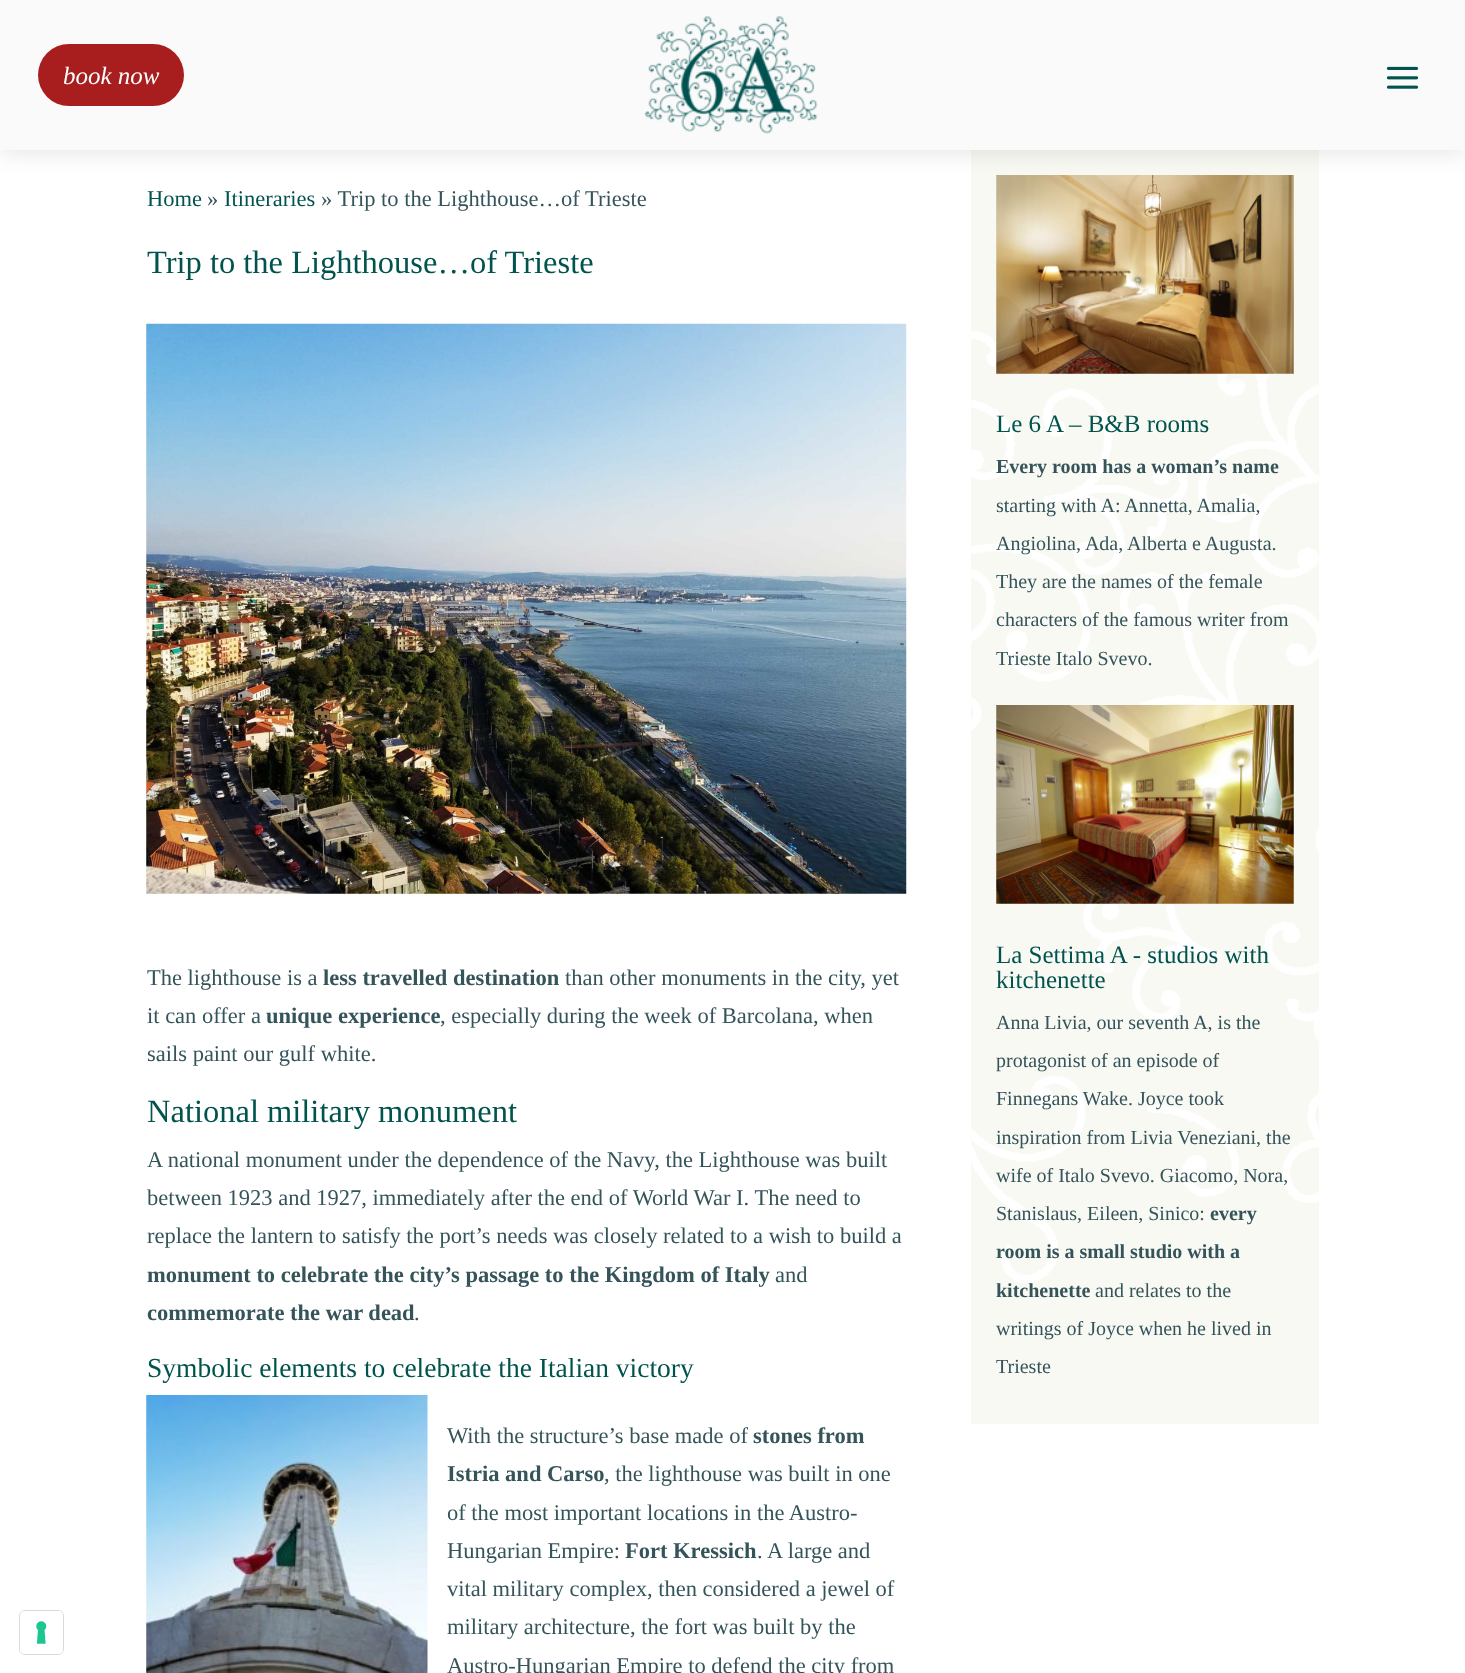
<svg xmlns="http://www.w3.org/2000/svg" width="1465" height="1673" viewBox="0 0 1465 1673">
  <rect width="100%" height="100%" fill="rgb(255,255,255)"/>
  <rect x="19.5" y="1610.5" width="44" height="44" rx="5.5" fill="none" stroke="rgb(217,217,217)"/>
  <rect x="20" y="1611" width="43" height="43" rx="5" fill="rgb(255,255,255)"/>
  <image x="36" y="1621" width="11" height="23" href="pic1.png"/>
  <rect x="971" y="150" width="348" height="1274" fill="rgb(249,249,244)"/>
  <image x="971" y="331" width="348" height="952" href="pic6.png"/>
  <image x="996" y="175" width="298" height="199" href="pic7.png"/>
  <rect x="0" y="3" width="1465" height="150" fill="rgba(0,0,0,0.1)" filter="blur(11px)"/>
  <rect x="0" y="0" width="1465" height="150" fill="rgb(250,250,250)"/>
  <rect x="38" y="44" width="146" height="62" rx="31" fill="rgb(168,30,30)"/>
  <text x="63" y="84" font-family="Liberation Serif" font-size="25" font-style="italic" fill="rgb(255,255,255)">book now</text>
  <image x="644" y="16" width="174" height="118" href="pic2.png"/>
  <image x="1386" y="66" width="33" height="23" href="pic3.png"/>
  <text x="147" y="206" font-family="Liberation Serif" font-size="22.5" fill="rgb(0,84,77)">Home</text>
  <text x="207" y="206" font-family="Liberation Serif" font-size="22.5" fill="rgb(52,84,90)">»</text>
  <text x="224" y="206" font-family="Liberation Serif" font-size="22.5" fill="rgb(0,84,77)">Itineraries</text>
  <text x="321" y="206" font-family="Liberation Serif" font-size="22.5" fill="rgb(52,84,90)">» Trip to the Lighthouse…of Trieste</text>
  <text x="147" y="273" font-family="Liberation Serif" font-size="32.5" fill="rgb(0,84,77)">Trip to the Lighthouse…of Trieste</text>
  <image x="146" y="323" width="761" height="571" href="pic4.png"/>
  <text x="147" y="985" font-family="Liberation Serif" font-size="22.5" fill="rgb(52,84,90)">The lighthouse is a</text>
  <text x="323" y="985" font-family="Liberation Serif" font-size="22.5" font-weight="bold" fill="rgb(52,84,90)">less travelled destination</text>
  <g font-family="Liberation Serif" font-size="22.5" fill="rgb(52,84,90)">
    <text x="565" y="985">than other monuments in the city, yet</text>
    <text x="147" y="1023">it can offer a</text>
  </g>
  <text x="266" y="1023" font-family="Liberation Serif" font-size="22.5" font-weight="bold" fill="rgb(52,84,90)">unique experience</text>
  <g font-family="Liberation Serif" font-size="22.5" fill="rgb(52,84,90)">
    <text x="440" y="1023">, especially during the week of Barcolana, when</text>
    <text x="147" y="1061">sails paint our gulf white.</text>
  </g>
  <text x="147" y="1122" font-family="Liberation Serif" font-size="32.5" fill="rgb(0,84,77)">National military monument</text>
  <g font-family="Liberation Serif" font-size="22.5" fill="rgb(52,84,90)">
    <text>
      <tspan x="147" y="1167">A national monument under the dependence of the Navy, the Lighthouse was built</tspan>
      <tspan x="147" y="1205">between 1923 and 1927, immediately after the end of World War I. The need to</tspan>
      <tspan x="147" y="1243">replace the lantern to satisfy the port’s needs was closely related to a wish to build a</tspan>
    </text>
  </g>
  <text x="147" y="1282" font-family="Liberation Serif" font-size="22.5" font-weight="bold" fill="rgb(52,84,90)">monument to celebrate the city’s passage to the Kingdom of Italy</text>
  <text x="775" y="1282" font-family="Liberation Serif" font-size="22.5" fill="rgb(52,84,90)">and</text>
  <text x="147" y="1320" font-family="Liberation Serif" font-size="22.5" font-weight="bold" fill="rgb(52,84,90)">commemorate the war dead</text>
  <text x="414" y="1320" font-family="Liberation Serif" font-size="22.5" fill="rgb(52,84,90)">.</text>
  <text x="147" y="1377" font-family="Liberation Serif" font-size="27.5" fill="rgb(0,84,77)">Symbolic elements to celebrate the Italian victory</text>
  <image x="146" y="1395" width="282" height="278" href="pic5.png"/>
  <text x="447" y="1443" font-family="Liberation Serif" font-size="22.5" fill="rgb(52,84,90)">With the structure’s base made of</text>
  <g font-family="Liberation Serif" font-size="22.5" font-weight="bold" fill="rgb(52,84,90)">
    <text x="753" y="1443">stones from</text>
    <text x="447" y="1481">Istria and Carso</text>
  </g>
  <g font-family="Liberation Serif" font-size="22.5" fill="rgb(52,84,90)">
    <text x="604" y="1481">, the lighthouse was built in one</text>
    <text>
      <tspan x="447" y="1520">of the most important locations in the Austro-</tspan>
      <tspan x="447" y="1558">Hungarian Empire:</tspan>
    </text>
  </g>
  <text x="625" y="1558" font-family="Liberation Serif" font-size="22.5" font-weight="bold" fill="rgb(52,84,90)">Fort Kressich</text>
  <g font-family="Liberation Serif" font-size="22.5" fill="rgb(52,84,90)">
    <text x="757" y="1558">. A large and</text>
    <text>
      <tspan x="447" y="1596">vital military complex, then considered a jewel of</tspan>
      <tspan x="447" y="1634">military architecture, the fort was built by the</tspan>
      <tspan x="447" y="1673">Austro-Hungarian Empire to defend the city from</tspan>
    </text>
  </g>
  <text x="996" y="432" font-family="Liberation Serif" font-size="25" fill="rgb(0,84,77)">Le 6 A – B&amp;B rooms</text>
  <text x="996" y="473" font-family="Liberation Serif" font-size="20" font-weight="bold" fill="rgb(52,84,90)">Every room has a woman’s name</text>
  <g font-family="Liberation Serif" font-size="20" fill="rgb(52,84,90)">
    <text>
      <tspan x="996" y="512">starting with A: Annetta, Amalia,</tspan>
      <tspan x="996" y="550">Angiolina, Ada, Alberta e Augusta.</tspan>
      <tspan x="996" y="588">They are the names of the female</tspan>
      <tspan x="996" y="626">characters of the famous writer from</tspan>
      <tspan x="996" y="665">Trieste Italo Svevo.</tspan>
    </text>
  </g>
  <image x="996" y="705" width="298" height="199" href="pic8.png"/>
  <g font-family="Liberation Serif" font-size="25" fill="rgb(0,84,77)">
    <text>
      <tspan x="996" y="963">La Settima A - studios with</tspan>
      <tspan x="996" y="988">kitchenette</tspan>
    </text>
  </g>
  <g font-family="Liberation Serif" font-size="20" fill="rgb(52,84,90)">
    <text>
      <tspan x="996" y="1029">Anna Livia, our seventh A, is the</tspan>
      <tspan x="996" y="1067">protagonist of an episode of</tspan>
      <tspan x="996" y="1105">Finnegans Wake. Joyce took</tspan>
      <tspan x="996" y="1144">inspiration from Livia Veneziani, the</tspan>
      <tspan x="996" y="1182">wife of Italo Svevo. Giacomo, Nora,</tspan>
      <tspan x="996" y="1220">Stanislaus, Eileen, Sinico:</tspan>
    </text>
  </g>
  <g font-family="Liberation Serif" font-size="20" font-weight="bold" fill="rgb(52,84,90)">
    <text x="1210" y="1220">every</text>
    <text>
      <tspan x="996" y="1258">room is a small studio with a</tspan>
      <tspan x="996" y="1297">kitchenette</tspan>
    </text>
  </g>
  <g font-family="Liberation Serif" font-size="20" fill="rgb(52,84,90)">
    <text x="1095" y="1297">and relates to the</text>
    <text>
      <tspan x="996" y="1335">writings of Joyce when he lived in</tspan>
      <tspan x="996" y="1373">Trieste</tspan>
    </text>
  </g>
</svg>
